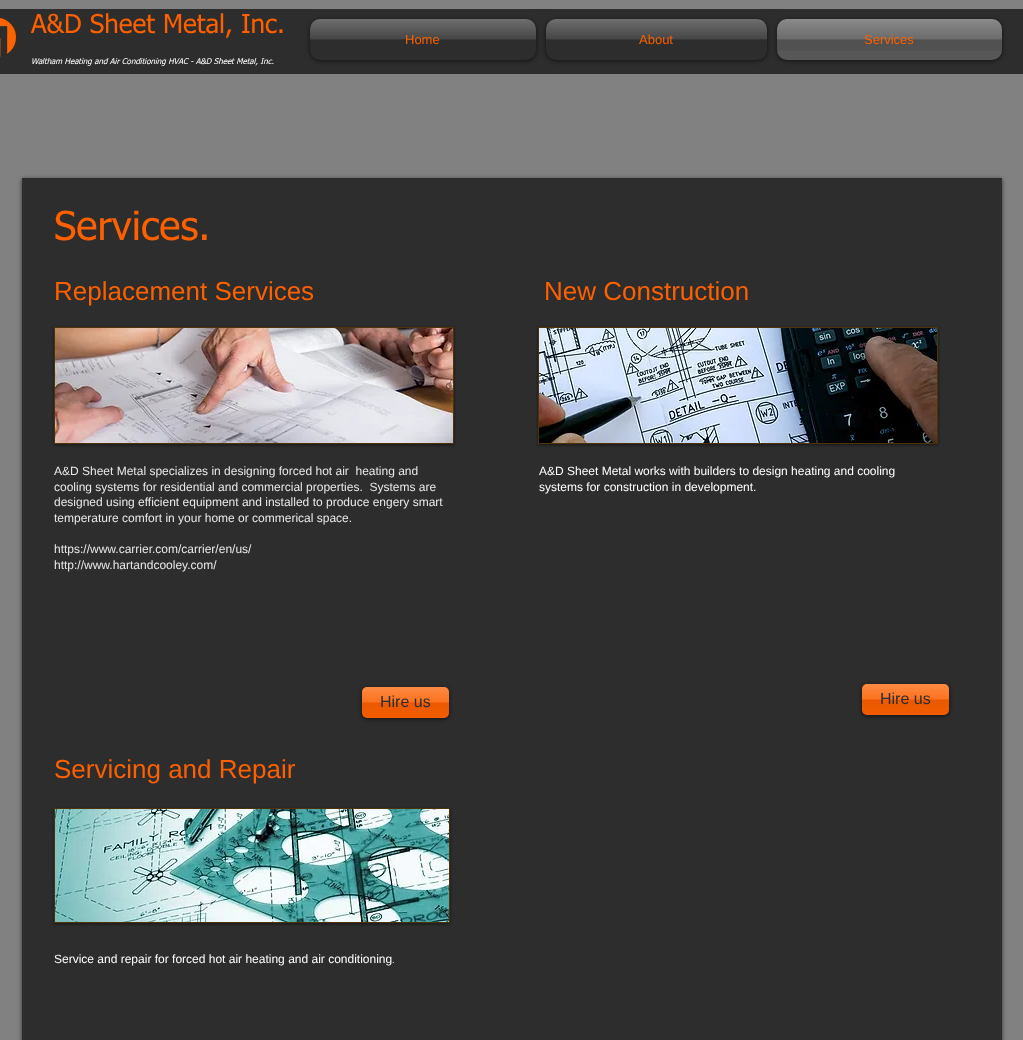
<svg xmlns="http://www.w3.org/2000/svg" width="1023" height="1040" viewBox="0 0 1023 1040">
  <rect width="100%" height="100%" fill="rgb(129,129,129)"/>
  <rect x="0" y="9" width="1023" height="65" fill="rgb(45,45,45)"/>
  <image x="0" y="18" width="16" height="39" href="pic1.png"/>
  <text x="31" y="33" font-family="tahoma" font-size="26" fill="rgb(252,96,0)">A&amp;D Sheet Metal, Inc.</text>
  <text x="31" y="64" font-family="tahoma" font-size="8" font-style="italic" fill="rgb(255,255,255)">Waltham Heating and Air Conditioning HVAC - A&amp;D Sheet Metal, Inc.</text>
  <rect x="310" y="20" width="226" height="41" rx="10" fill="rgba(0,0,0,0.6)" filter="blur(2px)"/>
  <rect x="310" y="19" width="226" height="41" rx="10" fill="rgb(45,45,45)"/>
  <image x="310" y="19" width="226" height="21" href="pic2.png"/>
  <text x="405" y="44" font-family="Liberation Sans" font-size="13" fill="rgb(252,96,0)">Home</text>
  <rect x="546" y="20" width="221" height="41" rx="10" fill="rgba(0,0,0,0.6)" filter="blur(2px)"/>
  <rect x="546" y="19" width="221" height="41" rx="10" fill="rgb(45,45,45)"/>
  <image x="546" y="19" width="221" height="21" href="pic3.png"/>
  <text x="639" y="44" font-family="Liberation Sans" font-size="13" fill="rgb(252,96,0)">About</text>
  <rect x="777" y="20" width="225" height="41" rx="10" fill="rgba(0,0,0,0.6)" filter="blur(2px)"/>
  <rect x="777" y="19" width="225" height="41" rx="10" fill="rgb(87,87,87)"/>
  <image x="777" y="19" width="225" height="32" href="pic4.png"/>
  <text x="864" y="44" font-family="Liberation Sans" font-size="13" fill="rgb(252,96,0)">Services</text>
  <rect x="22" y="179" width="980" height="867" fill="rgba(0,0,0,0.6)" filter="blur(2px)"/>
  <rect x="22" y="178" width="980" height="862" fill="rgb(45,45,45)"/>
  <text x="54" y="240" font-family="tahoma" font-size="40" fill="rgb(252,96,0)">Services.</text>
  <g font-family="Liberation Sans" font-size="26" fill="rgb(252,96,0)">
    <text x="54" y="300">Replacement Services</text>
    <text x="544" y="300">New Construction</text>
  </g>
  <rect x="54" y="328" width="400" height="117" fill="rgba(0,0,0,0.5)" filter="blur(1.5px)"/>
  <rect x="54" y="327" width="400" height="117" fill="rgb(79,51,6)"/>
  <image x="55" y="328" width="398" height="115" href="pic5.png"/>
  <rect x="538" y="328" width="400" height="117" fill="rgba(0,0,0,0.5)" filter="blur(1.5px)"/>
  <rect x="538" y="327" width="400" height="117" fill="rgb(79,51,6)"/>
  <image x="539" y="328" width="398" height="115" href="pic6.png"/>
  <g font-family="Liberation Sans" font-size="12" fill="rgb(232,232,232)">
    <text xml:space="preserve"><tspan x="54" y="475">A&amp;D Sheet Metal specializes in designing forced hot air  heating and</tspan><tspan x="54" y="491">cooling systems for residential and commercial properties.  Systems are</tspan><tspan x="54" y="506">designed using efficient equipment and installed to produce engery smart</tspan><tspan x="54" y="522">temperature comfort in your home or commerical space.</tspan></text>
    <text>
      <tspan x="54" y="553">https://www.carrier.com/carrier/en/us/</tspan>
      <tspan x="54" y="569">http://www.hartandcooley.com/</tspan>
    </text>
  </g>
  <g font-family="Liberation Sans" font-size="12" fill="rgb(255,255,255)">
    <text>
      <tspan x="539" y="475">A&amp;D Sheet Metal works with builders to design heating and cooling</tspan>
      <tspan x="539" y="491">systems for construction in development.</tspan>
    </text>
  </g>
  <rect x="362" y="688" width="87" height="31" rx="5" fill="rgba(0,0,0,0.6)" filter="blur(2px)"/>
  <rect x="362" y="687" width="87" height="31" rx="5" fill="rgb(252,96,0)"/>
  <image x="362" y="687" width="87" height="31" href="pic7.png"/>
  <text x="380" y="707" font-family="Liberation Sans" font-size="16" fill="rgb(45,45,45)">Hire us</text>
  <rect x="862" y="685" width="87" height="31" rx="5" fill="rgba(0,0,0,0.6)" filter="blur(2px)"/>
  <rect x="862" y="684" width="87" height="31" rx="5" fill="rgb(252,96,0)"/>
  <image x="862" y="684" width="87" height="31" href="pic7.png"/>
  <text x="880" y="704" font-family="Liberation Sans" font-size="16" fill="rgb(45,45,45)">Hire us</text>
  <text x="54" y="778" font-family="Liberation Sans" font-size="26" fill="rgb(252,96,0)">Servicing and Repair</text>
  <rect x="54" y="809" width="396" height="115" fill="rgba(0,0,0,0.5)" filter="blur(1.5px)"/>
  <rect x="54" y="808" width="396" height="115" fill="rgb(79,51,6)"/>
  <image x="55" y="809" width="394" height="113" href="pic8.png"/>
  <text x="54" y="963" font-family="Liberation Sans" font-size="12" fill="rgb(255,255,255)">Service and repair for forced hot air heating and air conditioning</text>
  <text x="392" y="963" font-family="Liberation Sans" font-size="9" fill="rgb(255,255,255)">.</text>
</svg>
